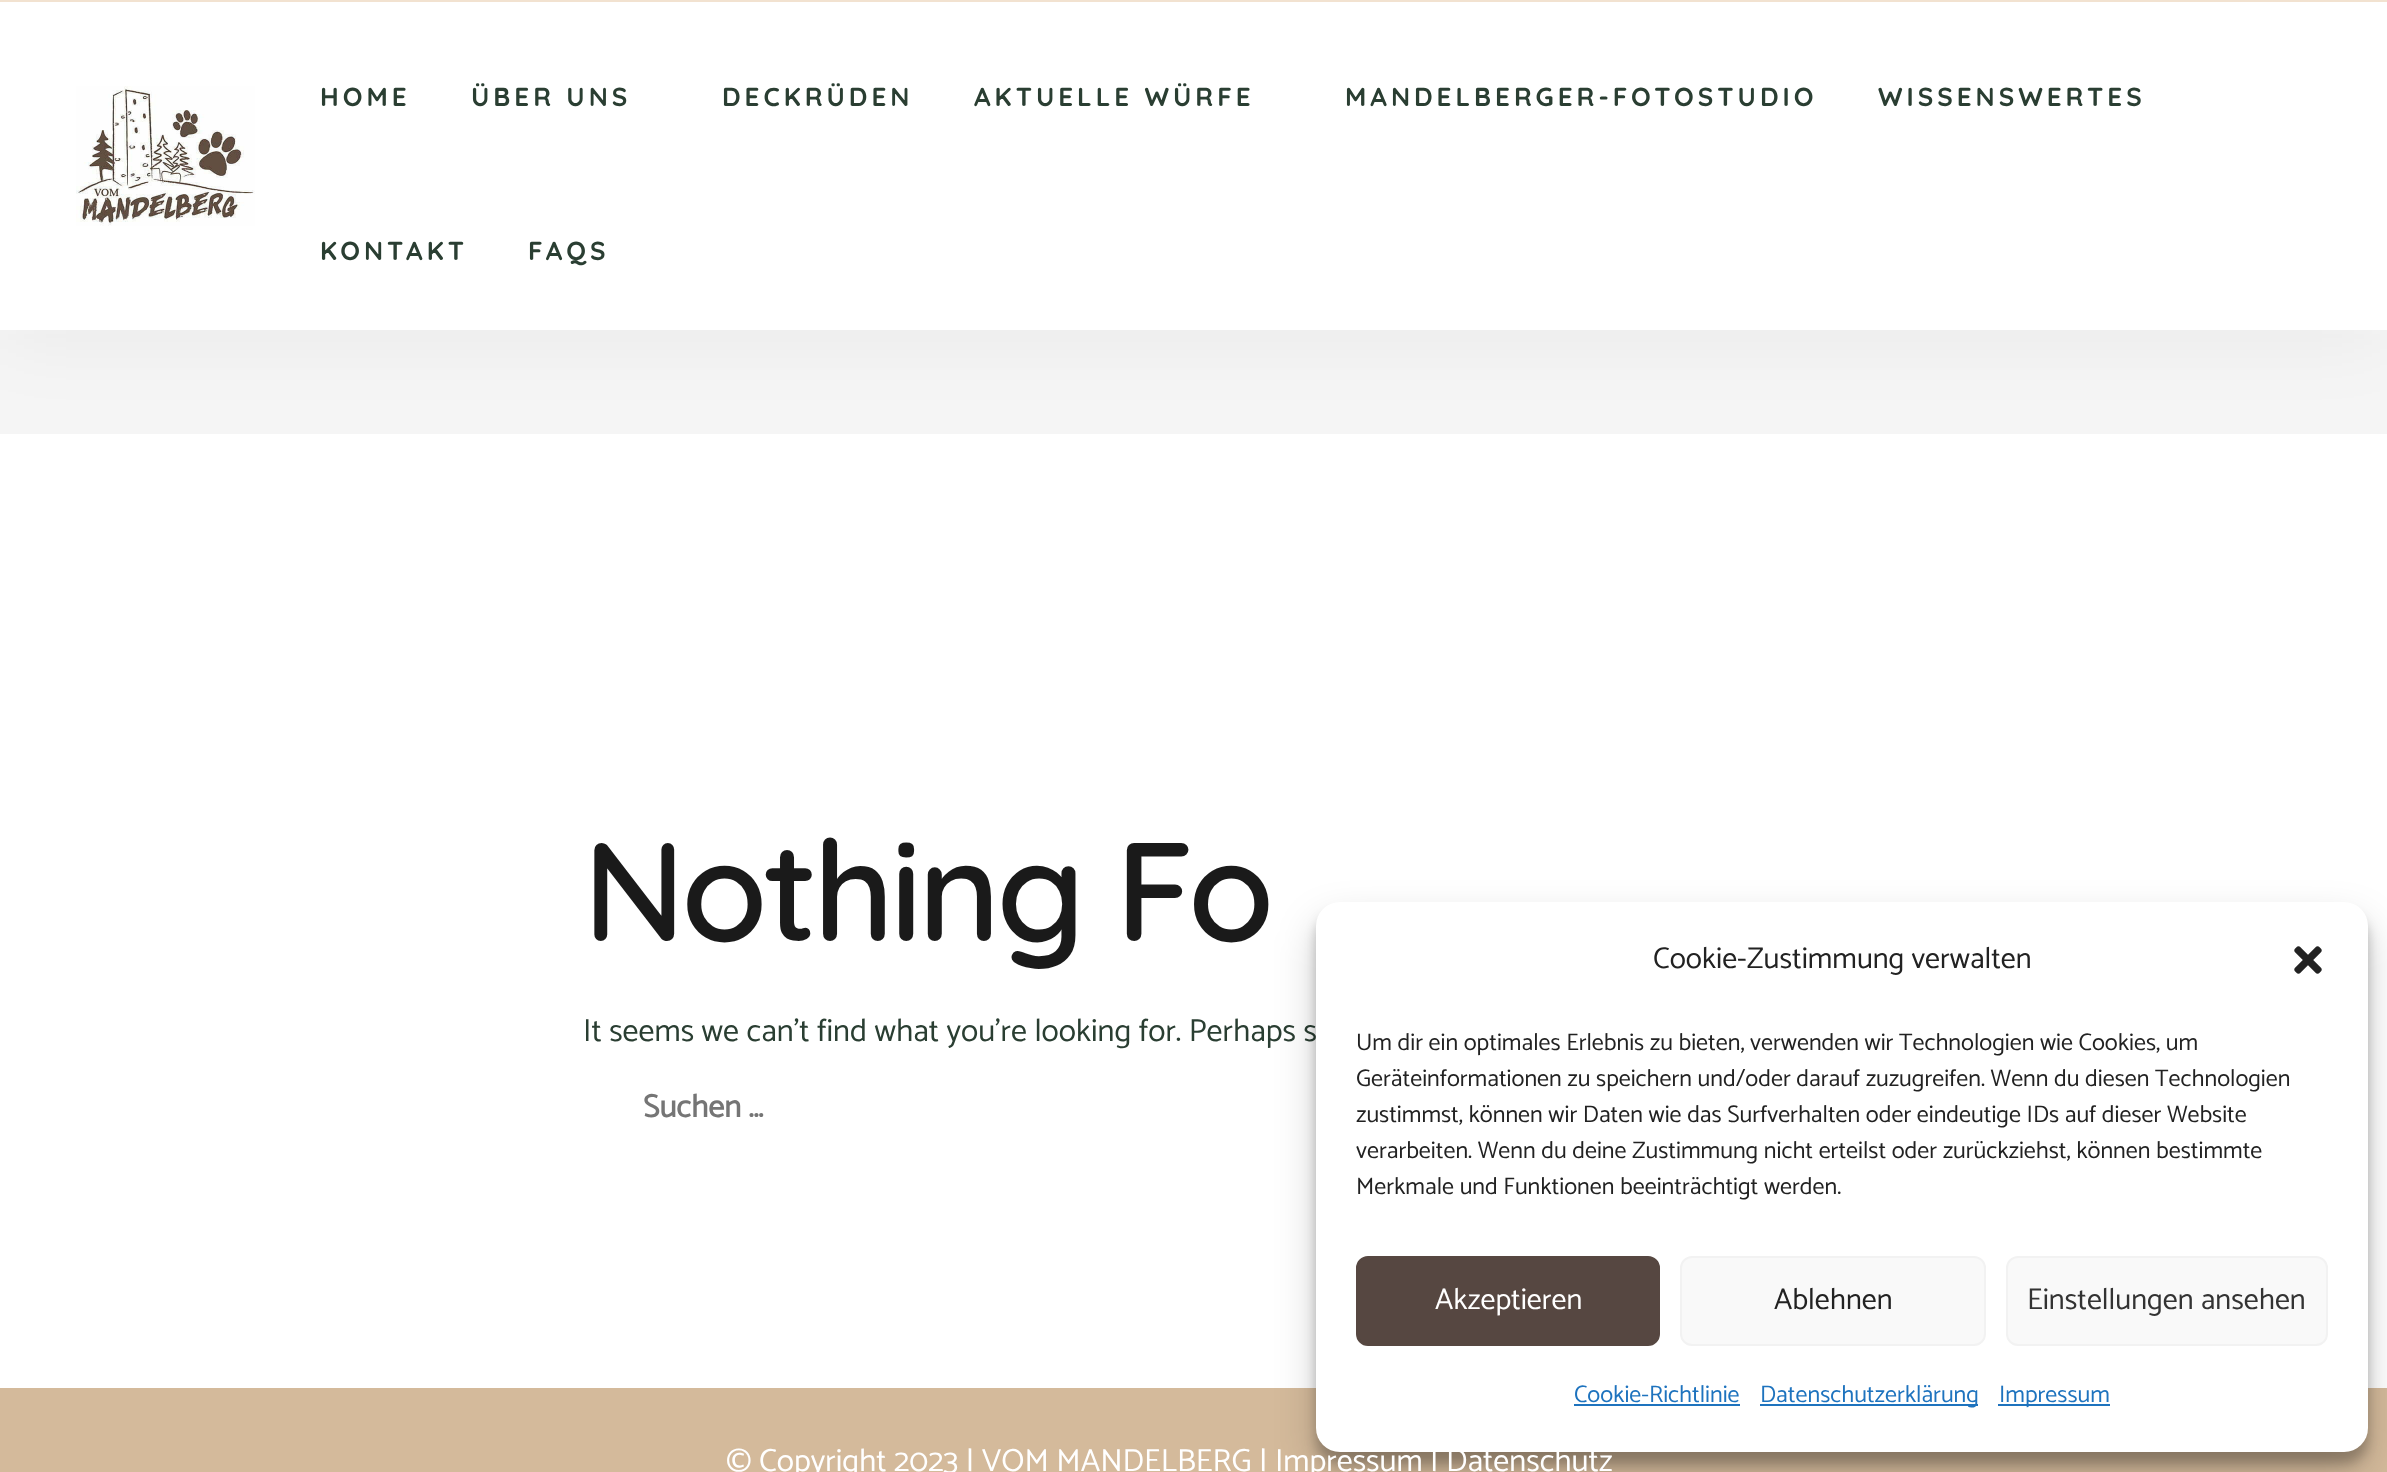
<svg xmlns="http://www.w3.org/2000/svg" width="2387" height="1472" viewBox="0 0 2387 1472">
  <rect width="100%" height="100%" fill="rgb(255,255,255)"/>
  <rect x="0" y="330" width="2387" height="104" fill="rgb(245,245,245)"/>
  <rect x="0" y="-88" width="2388" height="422" fill="rgba(15,15,15,0.05)" filter="blur(40px)"/>
  <rect x="0" y="2" width="2387" height="328" fill="rgb(255,255,255)"/>
  <rect x="0" y="0" width="2387" height="2" fill="rgb(242,226,208)"/>
  <image x="76" y="86" width="179" height="140" href="pic1.png"/>
  <g font-family="Quicksand" font-size="26" font-weight="bold" letter-spacing="4" fill="rgb(42,62,50)">
    <text x="320" y="106">HOME</text>
    <text x="471" y="106">ÜBER UNS</text>
    <text x="722" y="106">DECKRÜDEN</text>
    <text x="974" y="106">AKTUELLE WÜRFE</text>
    <text x="1345" y="106">MANDELBERGER-FOTOSTUDIO</text>
    <text x="1878" y="106">WISSENSWERTES</text>
    <text x="320" y="260">KONTAKT</text>
    <text x="528" y="260">FAQS</text>
  </g>
  <text x="583" y="941" font-family="Quicksand" font-size="140" font-weight="600" letter-spacing="-4.25" fill="rgb(26,26,26)">Nothing Fo</text>
  <text x="583" y="1041" font-family="Catamaran" font-size="32" font-weight="100" fill="rgb(42,62,50)">It seems we can’t find what you’re looking for. Perhaps s</text>
  <text x="643" y="1117" font-family="Catamaran" font-size="32" font-weight="bold" fill="rgb(117,117,117)">Suchen …</text>
  <rect x="0" y="1388" width="2387" height="84" fill="rgb(212,186,155)"/>
  <rect x="1316" y="914" width="1052" height="550" rx="24" fill="rgba(0,0,0,0.23)" filter="blur(6px)"/>
  <rect x="1316" y="922" width="1052" height="550" rx="24" fill="rgba(0,0,0,0.19)" filter="blur(20px)"/>
  <rect x="1316" y="902" width="1052" height="550" rx="24" fill="rgb(255,255,255)"/>
  <text x="1653" y="968" font-family="Catamaran" font-size="30" font-weight="100" fill="rgb(34,34,34)">Cookie-Zustimmung verwalten</text>
  <image x="2294" y="946" width="28" height="28" href="pic2.png"/>
  <g font-family="Catamaran" font-size="24" font-weight="100" fill="rgb(34,34,34)">
    <text>
      <tspan x="1356" y="1050">Um dir ein optimales Erlebnis zu bieten, verwenden wir Technologien wie Cookies, um</tspan>
      <tspan x="1356" y="1086">Geräteinformationen zu speichern und/oder darauf zuzugreifen. Wenn du diesen Technologien</tspan>
      <tspan x="1356" y="1122">zustimmst, können wir Daten wie das Surfverhalten oder eindeutige IDs auf dieser Website</tspan>
      <tspan x="1356" y="1158">verarbeiten. Wenn du deine Zustimmung nicht erteilst oder zurückziehst, können bestimmte</tspan>
      <tspan x="1356" y="1194">Merkmale und Funktionen beeinträchtigt werden.</tspan>
    </text>
  </g>
  <rect x="1357" y="1257" width="302" height="88" rx="11" fill="rgb(86,71,65)" stroke="rgb(86,71,65)" stroke-width="2"/>
  <text x="1435" y="1309" font-family="Catamaran" font-size="30" font-weight="100" fill="rgb(255,255,255)">Akzeptieren</text>
  <rect x="1681" y="1257" width="304" height="88" rx="11" fill="rgb(249,249,249)" stroke="rgb(242,242,242)" stroke-width="2"/>
  <text x="1774" y="1309" font-family="Catamaran" font-size="30" font-weight="100" fill="rgb(34,34,34)">Ablehnen</text>
  <rect x="2007" y="1257" width="320" height="88" rx="11" fill="rgb(249,249,249)" stroke="rgb(242,242,242)" stroke-width="2"/>
  <text x="2027" y="1309" font-family="Catamaran" font-size="30" font-weight="100" fill="rgb(51,51,51)">Einstellungen ansehen</text>
  <text x="1574" y="1402" font-family="Catamaran" font-size="24" font-weight="100" fill="rgb(30,115,190)">Cookie-Richtlinie</text>
  <rect x="1574" y="1404" width="166" height="2" fill="rgb(30,115,190)"/>
  <rect x="1760" y="1404" width="218" height="2" fill="rgb(30,115,190)"/>
  <text x="1760" y="1402" font-family="Catamaran" font-size="24" font-weight="100" fill="rgb(30,115,190)">Datenschutzerklärung</text>
  <rect x="1998" y="1404" width="112" height="2" fill="rgb(30,115,190)"/>
  <text x="1999" y="1402" font-family="Catamaran" font-size="24" font-weight="100" fill="rgb(30,115,190)">Impressum</text>
  <text x="726" y="1471" font-family="Catamaran" font-size="32" font-weight="100" fill="rgb(255,255,255)">© Copyright 2023 | VOM MANDELBERG | Impressum | Datenschutz</text>
</svg>
